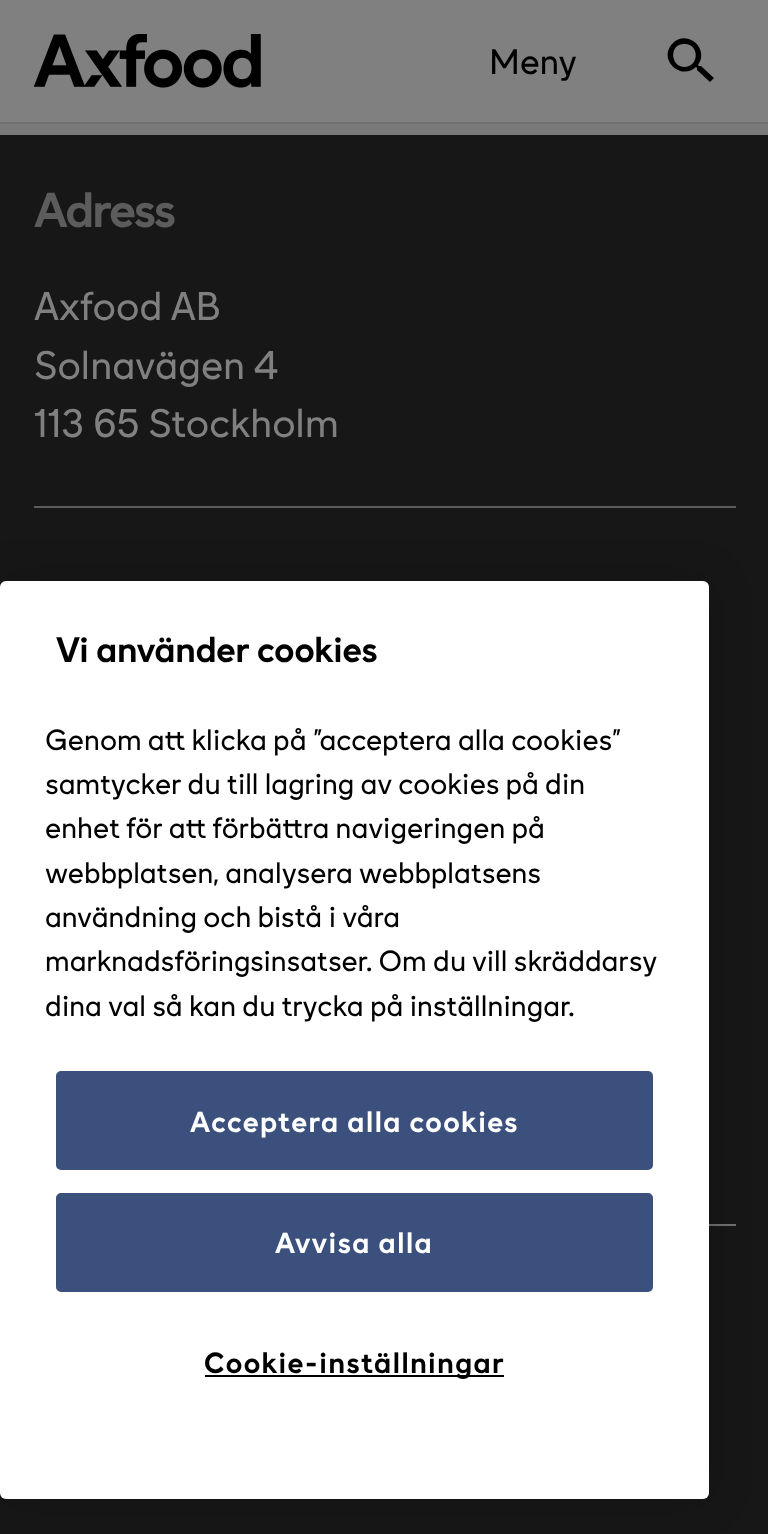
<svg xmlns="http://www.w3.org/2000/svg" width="768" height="1534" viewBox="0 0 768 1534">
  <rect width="100%" height="100%" fill="rgb(23,23,23)"/>
  <rect x="0" y="0" width="768" height="122" fill="rgb(128,128,128)"/>
  <rect x="0" y="122" width="768" height="2" fill="rgb(112,112,112)"/>
  <image x="34" y="34" width="227" height="54" href="pic1.png"/>
  <text x="489" y="74" font-family="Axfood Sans" font-size="36" fill="rgb(0,0,0)">Meny</text>
  <path d="M701 66H699L698 65C710 49 687 28 672 44C658 60 681 81 696 67L697 68V70L710 82L714 78ZM685 67C670 67 669 44 684 44C699 43 700 66 685 67Z" fill="rgb(0,0,0)" fill-rule="evenodd"/>
  <rect x="0" y="124" width="768" height="11" fill="rgb(122,122,122)"/>
  <rect x="34" y="506" width="702" height="2" fill="rgb(92,92,92)"/>
  <text x="34" y="227" font-family="Axfood Sans" font-size="49.5" font-weight="bold" letter-spacing="-1.5" fill="rgb(92,92,92)">Adress</text>
  <g font-family="Axfood Sans" font-size="40.5" fill="rgb(128,128,128)">
    <text>
      <tspan x="34" y="320">Axfood AB</tspan>
      <tspan x="34" y="379">Solnavägen 4</tspan>
      <tspan x="34" y="437">113 65 Stockholm</tspan>
    </text>
  </g>
  <rect x="709" y="1224" width="27" height="2" fill="rgb(112,112,112)"/>
  <rect x="0" y="581" width="709" height="918" rx="6" fill="rgba(0,0,0,0.2)" filter="blur(20px)"/>
  <rect x="0" y="581" width="709" height="918" rx="6" fill="rgb(255,255,255)"/>
  <text x="56" y="662" font-family="Axfood Sans" font-size="36" font-weight="bold" fill="rgb(0,0,0)">Vi använder cookies</text>
  <g font-family="Axfood Sans" font-size="29.5" fill="rgb(0,0,0)">
    <text>
      <tspan x="45" y="750">Genom att klicka på "acceptera alla cookies"</tspan>
      <tspan x="45" y="794">samtycker du till lagring av cookies på din</tspan>
      <tspan x="45" y="838">enhet för att förbättra navigeringen på</tspan>
      <tspan x="45" y="883">webbplatsen, analysera webbplatsens</tspan>
      <tspan x="45" y="927">användning och bistå i våra</tspan>
      <tspan x="45" y="971">marknadsföringsinsatser. Om du vill skräddarsy</tspan>
      <tspan x="45" y="1016">dina val så kan du trycka på inställningar.</tspan>
    </text>
  </g>
  <rect x="57" y="1072" width="595" height="97" rx="4" fill="rgb(60,80,125)" stroke="rgb(60,80,125)" stroke-width="2"/>
  <text x="190" y="1132" font-family="Axfood Sans" font-size="29.5" font-weight="bold" letter-spacing="1.5" fill="rgb(255,255,255)">Acceptera alla cookies</text>
  <rect x="57" y="1194" width="595" height="97" rx="4" fill="rgb(60,80,125)" stroke="rgb(60,80,125)" stroke-width="2"/>
  <text x="275" y="1253" font-family="Axfood Sans" font-size="29.5" font-weight="bold" letter-spacing="1.5" fill="rgb(255,255,255)">Avvisa alla</text>
  <rect x="205" y="1375" width="299" height="2" fill="rgb(0,0,0)"/>
  <text x="204" y="1373" font-family="Axfood Sans" font-size="29.5" font-weight="bold" letter-spacing="1.5" fill="rgb(0,0,0)">Cookie-inställningar</text>
</svg>
